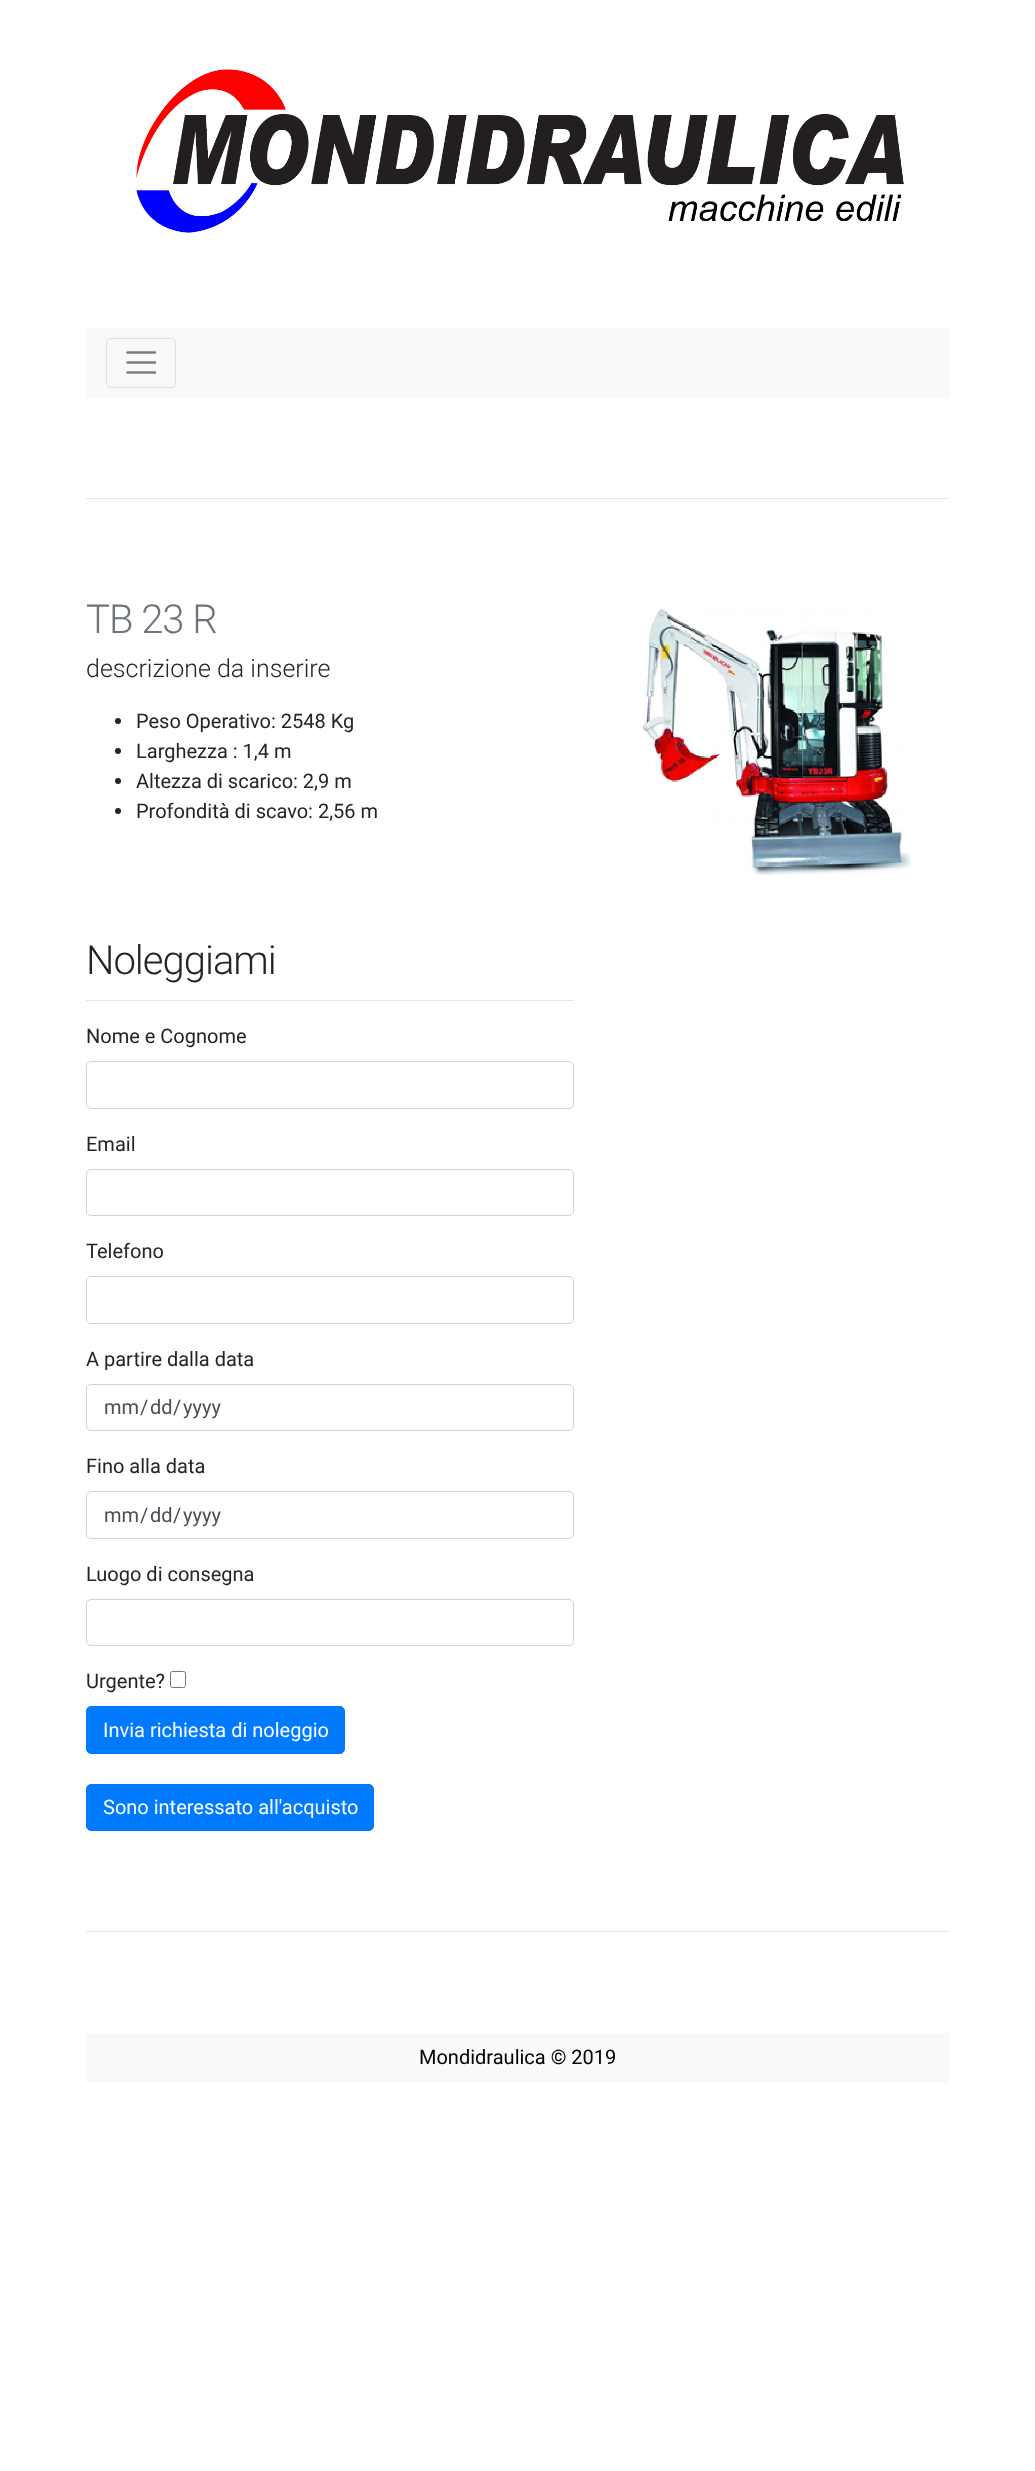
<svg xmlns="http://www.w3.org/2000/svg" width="1035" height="2471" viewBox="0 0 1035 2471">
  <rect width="100%" height="100%" fill="rgb(255,255,255)"/>
  <image x="136" y="69" width="768" height="164" href="pic1.png"/>
  <rect x="86" y="328" width="863" height="70" fill="rgb(248,249,250)"/>
  <rect x="106.5" y="338.5" width="69" height="49" rx="4.5" fill="none" stroke="rgb(223,224,225)"/>
  <path d="M127.5 352.5H155M127.5 362.5H155M127.5 372.5H155" fill="none" stroke="rgb(124,125,125)" stroke-width="2.5" stroke-linecap="round"/>
  <rect x="86" y="498" width="863" height="1" fill="rgb(230,230,230)"/>
  <text x="86" y="633" font-family="Roboto" font-size="40" font-weight="300" letter-spacing="-1" fill="rgb(108,117,125)">TB 23 R</text>
  <text x="86" y="677" font-family="Roboto" font-size="25" font-weight="300" fill="rgb(33,37,41)">descrizione da inserire</text>
  <circle cx="118" cy="721" r="3" fill="rgb(33,37,41)"/>
  <text x="136" y="728" font-family="Roboto" font-size="20" fill="rgb(33,37,41)">Peso Operativo: 2548 Kg</text>
  <circle cx="118" cy="751" r="3" fill="rgb(33,37,41)"/>
  <text x="136" y="758" font-family="Roboto" font-size="20" fill="rgb(33,37,41)">Larghezza : 1,4 m</text>
  <circle cx="118" cy="781" r="3" fill="rgb(33,37,41)"/>
  <text x="136" y="788" font-family="Roboto" font-size="20" fill="rgb(33,37,41)">Altezza di scarico: 2,9 m</text>
  <circle cx="118" cy="811" r="3" fill="rgb(33,37,41)"/>
  <text x="136" y="818" font-family="Roboto" font-size="20" fill="rgb(33,37,41)">Profondità di scavo: 2,56 m</text>
  <image x="642" y="608" width="270" height="268" href="pic2.png"/>
  <text x="86" y="974" font-family="Roboto" font-size="40" font-weight="300" letter-spacing="-1" fill="rgb(33,37,41)">Noleggiami</text>
  <rect x="86" y="1000" width="488" height="1" fill="rgb(230,230,230)"/>
  <text x="86" y="1043" font-family="Roboto" font-size="20" fill="rgb(33,37,41)">Nome e Cognome</text>
  <rect x="86.5" y="1061.5" width="487" height="47" rx="4.5" fill="none" stroke="rgb(206,212,218)"/>
  <text x="86" y="1151" font-family="Roboto" font-size="20" fill="rgb(33,37,41)">Email</text>
  <rect x="86.5" y="1169.5" width="487" height="46" rx="4.5" fill="none" stroke="rgb(206,212,218)"/>
  <text x="86" y="1258" font-family="Roboto" font-size="20" fill="rgb(33,37,41)">Telefono</text>
  <rect x="86.5" y="1276.5" width="487" height="47" rx="4.5" fill="none" stroke="rgb(206,212,218)"/>
  <text x="86" y="1366" font-family="Roboto" font-size="20" fill="rgb(33,37,41)">A partire dalla data</text>
  <rect x="86.5" y="1384.5" width="487" height="46" rx="4.5" fill="none" stroke="rgb(206,212,218)"/>
  <g font-family="Roboto" font-size="20" fill="rgb(73,80,87)">
    <text x="104" y="1414">mm</text>
    <text x="140" y="1414">/</text>
    <text x="150" y="1414">dd</text>
    <text x="173" y="1414">/</text>
    <text x="183" y="1414">yyyy</text>
  </g>
  <text x="86" y="1473" font-family="Roboto" font-size="20" fill="rgb(33,37,41)">Fino alla data</text>
  <rect x="86.5" y="1491.5" width="487" height="47" rx="4.5" fill="none" stroke="rgb(206,212,218)"/>
  <g font-family="Roboto" font-size="20" fill="rgb(73,80,87)">
    <text x="104" y="1522">mm</text>
    <text x="140" y="1522">/</text>
    <text x="150" y="1522">dd</text>
    <text x="173" y="1522">/</text>
    <text x="183" y="1522">yyyy</text>
  </g>
  <text x="86" y="1581" font-family="Roboto" font-size="20" fill="rgb(33,37,41)">Luogo di consegna</text>
  <rect x="86.5" y="1599.5" width="487" height="46" rx="4.5" fill="none" stroke="rgb(206,212,218)"/>
  <text x="86" y="1688" font-family="Roboto" font-size="20" fill="rgb(33,37,41)">Urgente?</text>
  <rect x="170.5" y="1671.5" width="15" height="16" rx="2" fill="none" stroke="rgb(118,118,118)"/>
  <rect x="86.5" y="1706.5" width="258" height="47" rx="4.5" fill="rgb(0,123,255)" stroke="rgb(0,123,255)"/>
  <text x="103" y="1737" font-family="Roboto" font-size="20" fill="rgb(255,255,255)">Invia richiesta di noleggio</text>
  <rect x="86.5" y="1784.5" width="287" height="46" rx="4.5" fill="rgb(0,123,255)" stroke="rgb(0,123,255)"/>
  <text x="103" y="1814" font-family="Roboto" font-size="20" fill="rgb(255,255,255)">Sono interessato all'acquisto</text>
  <rect x="86" y="1931" width="863" height="1" fill="rgb(230,230,230)"/>
  <rect x="86" y="2033" width="863" height="50" fill="rgb(248,249,250)"/>
  <text x="419" y="2064" font-family="Roboto" font-size="20" fill="rgb(0,0,0)">Mondidraulica © 2019</text>
</svg>
